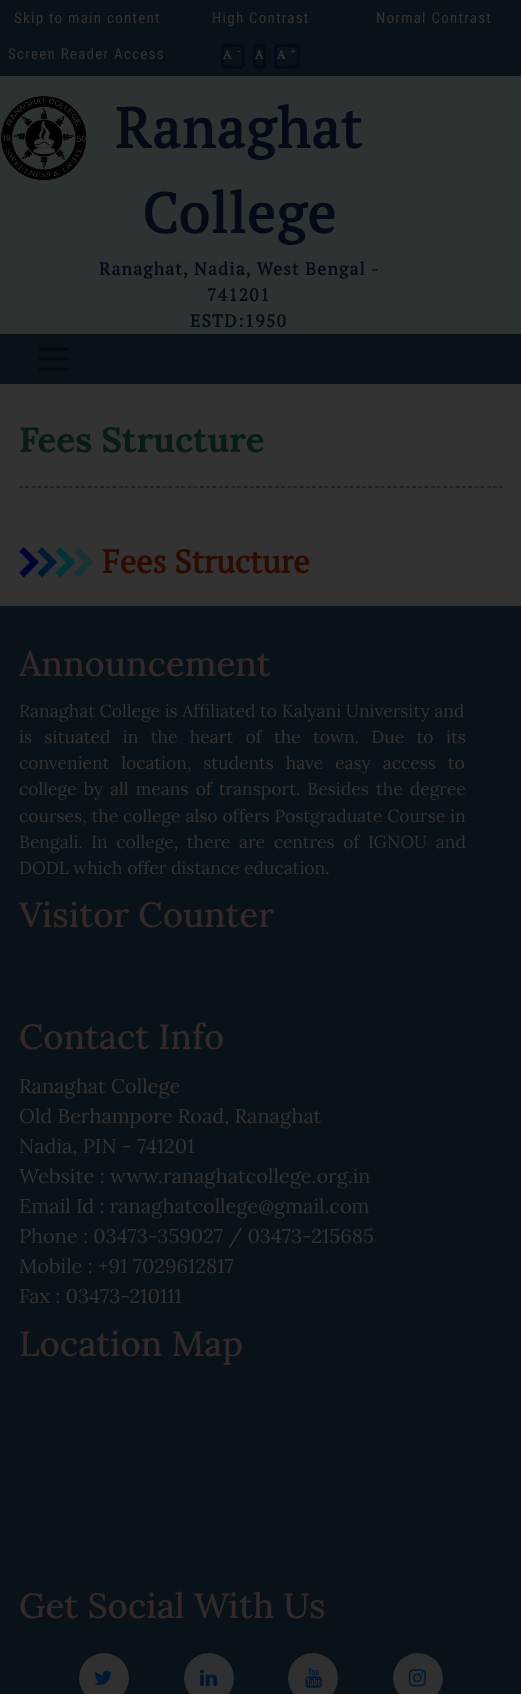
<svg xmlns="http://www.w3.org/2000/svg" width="521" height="1694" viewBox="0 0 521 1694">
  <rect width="100%" height="100%" fill="rgb(51,51,51)"/>
  <rect x="0" y="0" width="521" height="76" fill="rgb(10,18,25)"/>
  <g font-family="Roboto Condensed" font-size="15" letter-spacing="1.25" fill="rgb(51,51,51)">
    <text x="14" y="23">Skip to main content</text>
    <text x="212" y="23">High Contrast</text>
    <text x="376" y="23">Normal Contrast</text>
    <text x="8" y="59">Screen Reader Access</text>
  </g>
  <rect x="222.5" y="45.5" width="21" height="22" rx="3.5" fill="none" stroke="rgb(5,11,22)" stroke-width="3"/>
  <text x="223" y="59" font-family="Gelasio" font-size="12" font-weight="bold" letter-spacing="1.25" fill="rgb(51,51,51)">A</text>
  <text x="237" y="54" font-family="Gelasio" font-size="9" font-weight="bold" letter-spacing="1.25" fill="rgb(51,51,51)">-</text>
  <rect x="254.5" y="45.5" width="10" height="22" rx="3.5" fill="none" stroke="rgb(5,11,22)" stroke-width="3"/>
  <text x="255" y="59" font-family="Gelasio" font-size="12" font-weight="bold" letter-spacing="1.25" fill="rgb(51,51,51)">A</text>
  <rect x="275.5" y="45.5" width="23" height="22" rx="3.5" fill="none" stroke="rgb(5,11,22)" stroke-width="3"/>
  <text x="277" y="59" font-family="Gelasio" font-size="12" font-weight="bold" letter-spacing="1.25" fill="rgb(51,51,51)">A</text>
  <text x="290" y="54" font-family="Gelasio" font-size="9" font-weight="bold" letter-spacing="1.25" fill="rgb(51,51,51)">+</text>
  <rect x="0" y="76" width="521" height="258" fill="rgb(45,51,50)"/>
  <image x="0" y="95" width="88" height="87" href="pic1.png"/>
  <g font-family="PT Serif" font-size="56.25" font-weight="bold" letter-spacing="1.25" fill="rgb(5,11,22)">
    <text x="115" y="148">Ranaghat</text>
    <text x="142" y="233">College</text>
  </g>
  <g font-family="PT Serif" font-size="17.5" font-weight="bold" letter-spacing="1.25" fill="rgb(5,11,22)">
    <text x="99" y="275">Ranaghat, Nadia, West Bengal -</text>
    <text x="207" y="301">741201</text>
    <text x="190" y="327">ESTD:1950</text>
  </g>
  <rect x="0" y="334" width="521" height="50" fill="rgb(10,18,25)"/>
  <rect x="19.5" y="334.5" width="69" height="49" rx="4.5" fill="none" stroke="rgb(9,16,22)"/>
  <path d="M40 349H67.5M40 359H67.5M40 369H67.5" fill="none" stroke="rgb(5,9,12)" stroke-width="2.5" stroke-linecap="round"/>
  <text x="19" y="452" font-family="Lora" font-size="35" font-weight="bold" fill="rgb(8,28,21)">Fees Structure</text>
  <path d="M19 487H502.5" fill="none" stroke="rgb(10,18,25)" stroke-width="1.2" stroke-dasharray="3.75 2.49"/>
  <image x="18" y="547" width="76" height="31" href="pic2.png"/>
  <text x="102" y="573" font-family="PT Serif" font-size="32.5" font-weight="bold" fill="rgb(44,12,0)">Fees Structure</text>
  <rect x="0" y="606" width="521" height="1088" fill="rgb(10,18,25)"/>
  <text x="19" y="676" font-family="Lora" font-size="35" font-weight="500" fill="rgb(51,41,41)">Announcement</text>
  <g font-family="Lora" font-size="17.5" fill="rgb(51,51,51)">
    <text>
      <tspan x="19" y="717">Ranaghat College is Affiliated to Kalyani University and</tspan>
      <tspan x="19" y="743" word-spacing="7.75">is situated in the heart of the town. Due to its</tspan>
      <tspan x="19" y="769" word-spacing="7.25">convenient location, students have easy access to</tspan>
      <tspan x="19" y="795" word-spacing="2.5">college by all means of transport. Besides the degree</tspan>
      <tspan x="19" y="822" word-spacing="0.25">courses, the college also offers Postgraduate Course in</tspan>
      <tspan x="19" y="848" word-spacing="4">Bengali. In college, there are centres of IGNOU and</tspan>
      <tspan x="19" y="874">DODL which offer distance education.</tspan>
    </text>
  </g>
  <g font-family="Lora" font-size="35" font-weight="500" fill="rgb(51,41,41)">
    <text x="19" y="927">Visitor Counter</text>
    <text x="19" y="1049">Contact Info</text>
  </g>
  <g font-family="Lora" font-size="20" fill="rgb(51,51,51)">
    <text>
      <tspan x="19" y="1093">Ranaghat College</tspan>
      <tspan x="19" y="1123">Old Berhampore Road, Ranaghat</tspan>
      <tspan x="19" y="1153">Nadia, PIN - 741201</tspan>
      <tspan x="19" y="1183">Website : www.ranaghatcollege.org.in</tspan>
      <tspan x="19" y="1213">Email Id : ranaghatcollege@gmail.com</tspan>
      <tspan x="19" y="1243">Phone : 03473-359027 / 03473-215685</tspan>
      <tspan x="19" y="1273">Mobile : +91 7029612817</tspan>
      <tspan x="19" y="1303">Fax : 03473-210111</tspan>
    </text>
  </g>
  <g font-family="Lora" font-size="35" font-weight="500" fill="rgb(51,41,41)">
    <text x="19" y="1356">Location Map</text>
    <text x="19" y="1618">Get Social With Us</text>
  </g>
  <circle cx="104" cy="1678" r="25" fill="rgb(48,48,48)"/>
  <image x="94" y="1670" width="18" height="15" href="pic3.png"/>
  <circle cx="209" cy="1678" r="25" fill="rgb(48,48,48)"/>
  <image x="200" y="1669" width="18" height="17" href="pic4.png"/>
  <circle cx="313" cy="1678" r="25" fill="rgb(48,48,48)"/>
  <image x="305" y="1667" width="17" height="21" href="pic5.png"/>
  <circle cx="418" cy="1678" r="25" fill="rgb(48,48,48)"/>
  <image x="408" y="1669" width="18" height="18" href="pic6.png"/>
</svg>
